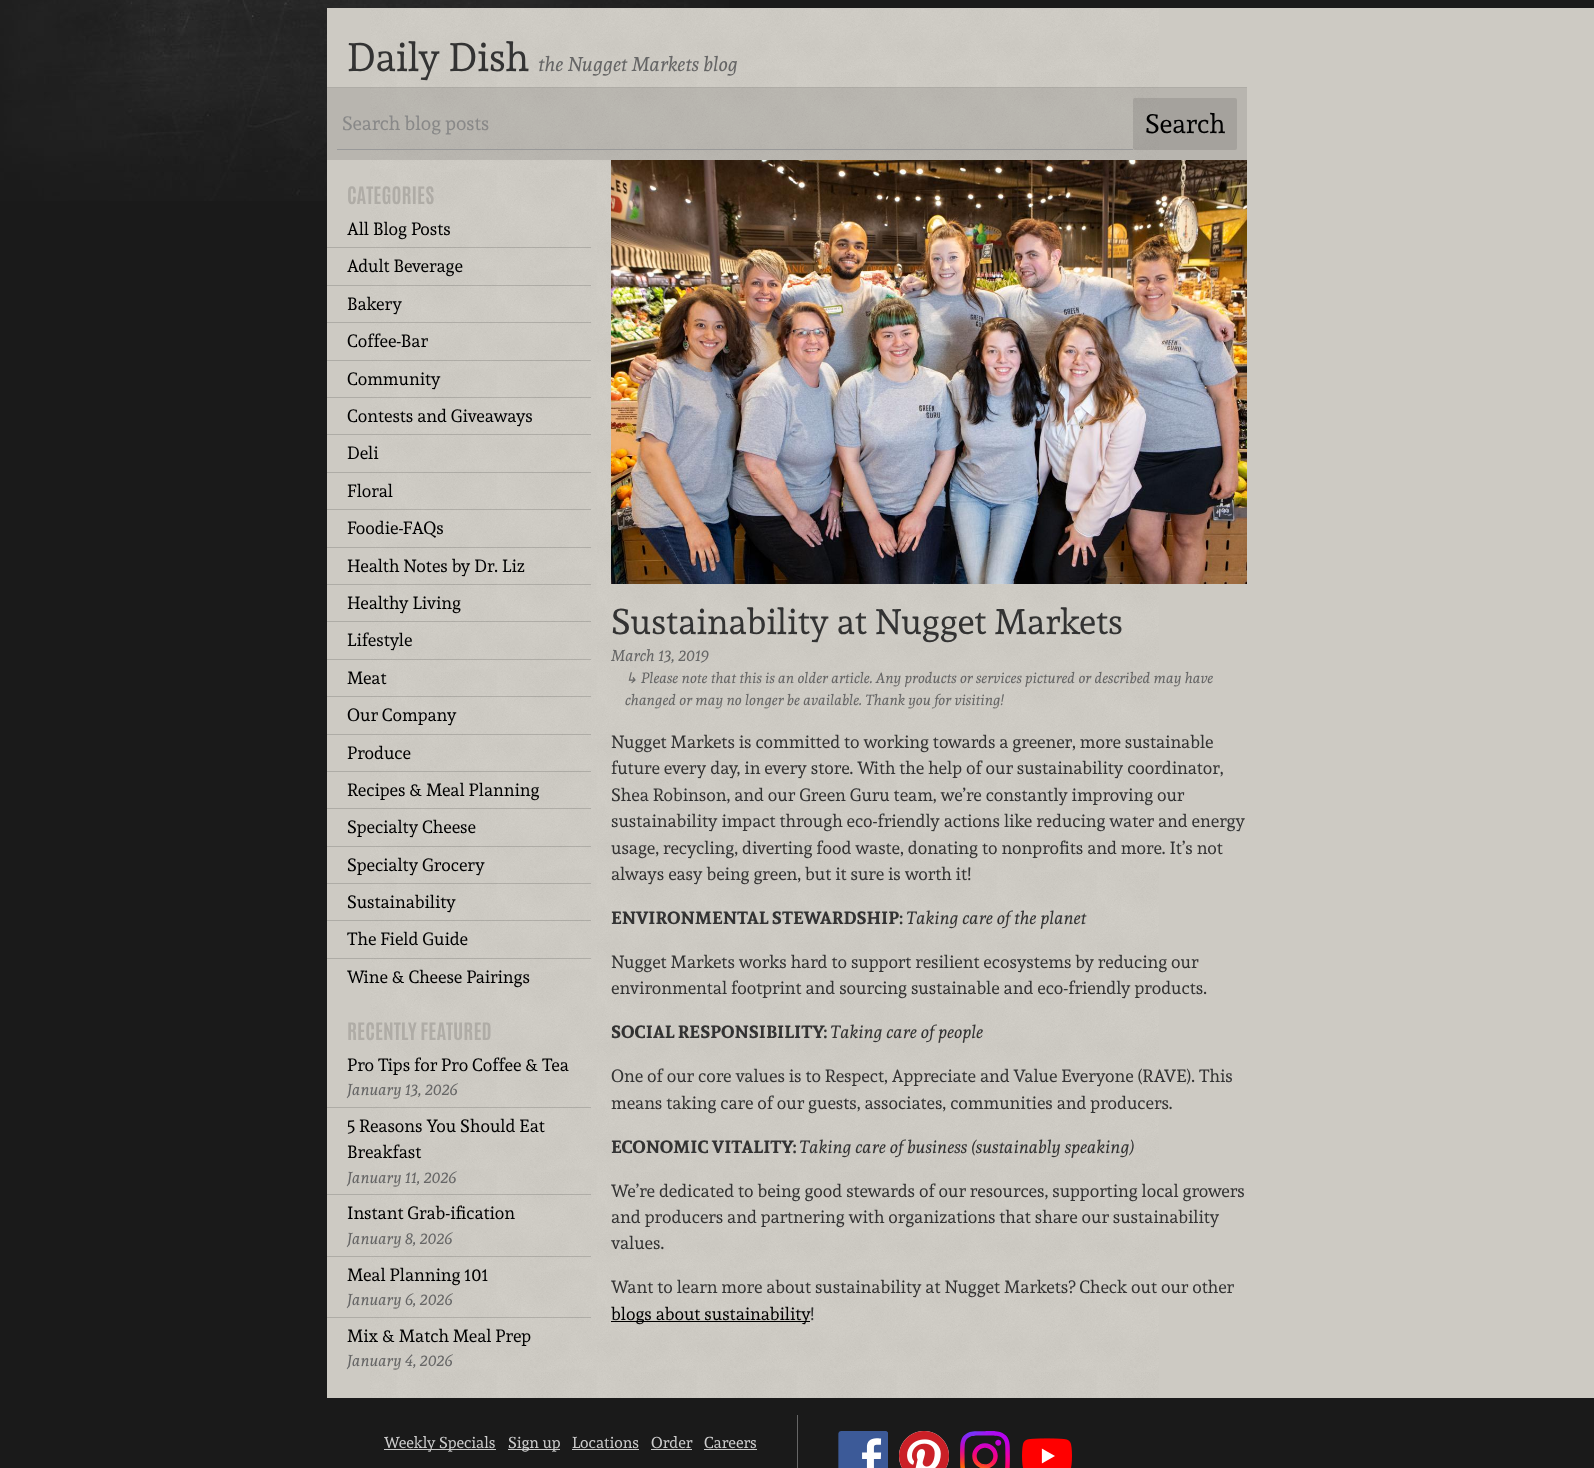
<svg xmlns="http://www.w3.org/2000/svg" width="1594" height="1468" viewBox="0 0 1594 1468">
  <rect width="100%" height="100%" fill="rgb(26,26,26)"/>
  <image x="0" y="0" width="729" height="201" href="pic1.png"/>
  <rect x="327" y="8" width="1267" height="1390" fill="rgb(205,202,195)"/>
  <image x="370" y="9" width="789" height="1389" href="pic2.png"/>
  <rect x="327" y="87" width="920" height="1" fill="rgba(0,0,0,0.15)"/>
  <text x="347" y="71" font-family="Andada" font-size="39.5" fill="rgb(51,51,51)">Daily Dish</text>
  <text x="538" y="71" font-family="Andada" font-size="19.75" font-style="italic" fill="rgb(102,102,102)">the Nugget Markets blog</text>
  <rect x="327" y="88" width="920" height="72" fill="rgba(0,0,0,0.1)"/>
  <rect x="337" y="149" width="796" height="1" fill="rgb(153,153,153)"/>
  <text x="342" y="130" font-family="Andada" font-size="19.25" fill="rgb(136,136,136)">Search blog posts</text>
  <rect x="1133" y="98" width="104" height="52" rx="2" fill="rgba(0,0,0,0.1)"/>
  <text x="1145" y="133" font-family="Andada" font-size="26.5" fill="rgb(0,0,0)">Search</text>
  <text x="347" y="204" font-family="Antonio" font-size="20.5" font-weight="bold" fill="rgb(175,172,166)">CATEGORIES</text>
  <text x="347" y="235" font-family="Andada" font-size="17.6" fill="rgb(0,0,0)">All Blog Posts</text>
  <rect x="327" y="247" width="264" height="1" fill="rgba(0,0,0,0.15)"/>
  <text x="347" y="272" font-family="Andada" font-size="17.6" fill="rgb(0,0,0)">Adult Beverage</text>
  <rect x="327" y="285" width="264" height="1" fill="rgba(0,0,0,0.15)"/>
  <text x="347" y="310" font-family="Andada" font-size="17.6" fill="rgb(0,0,0)">Bakery</text>
  <rect x="327" y="322" width="264" height="1" fill="rgba(0,0,0,0.15)"/>
  <text x="347" y="347" font-family="Andada" font-size="17.6" fill="rgb(0,0,0)">Coffee-Bar</text>
  <rect x="327" y="360" width="264" height="1" fill="rgba(0,0,0,0.15)"/>
  <text x="347" y="385" font-family="Andada" font-size="17.6" fill="rgb(0,0,0)">Community</text>
  <rect x="327" y="397" width="264" height="1" fill="rgba(0,0,0,0.15)"/>
  <text x="347" y="422" font-family="Andada" font-size="17.6" fill="rgb(0,0,0)">Contests and Giveaways</text>
  <rect x="327" y="434" width="264" height="1" fill="rgba(0,0,0,0.15)"/>
  <text x="347" y="459" font-family="Andada" font-size="17.6" fill="rgb(0,0,0)">Deli</text>
  <rect x="327" y="472" width="264" height="1" fill="rgba(0,0,0,0.15)"/>
  <text x="347" y="497" font-family="Andada" font-size="17.6" fill="rgb(0,0,0)">Floral</text>
  <rect x="327" y="509" width="264" height="1" fill="rgba(0,0,0,0.15)"/>
  <text x="347" y="534" font-family="Andada" font-size="17.6" fill="rgb(0,0,0)">Foodie-FAQs</text>
  <rect x="327" y="547" width="264" height="1" fill="rgba(0,0,0,0.15)"/>
  <text x="347" y="572" font-family="Andada" font-size="17.6" fill="rgb(0,0,0)">Health Notes by Dr. Liz</text>
  <rect x="327" y="584" width="264" height="1" fill="rgba(0,0,0,0.15)"/>
  <text x="347" y="609" font-family="Andada" font-size="17.6" fill="rgb(0,0,0)">Healthy Living</text>
  <rect x="327" y="621" width="264" height="1" fill="rgba(0,0,0,0.15)"/>
  <text x="347" y="646" font-family="Andada" font-size="17.6" fill="rgb(0,0,0)">Lifestyle</text>
  <rect x="327" y="659" width="264" height="1" fill="rgba(0,0,0,0.15)"/>
  <text x="347" y="684" font-family="Andada" font-size="17.6" fill="rgb(0,0,0)">Meat</text>
  <rect x="327" y="696" width="264" height="1" fill="rgba(0,0,0,0.15)"/>
  <text x="347" y="721" font-family="Andada" font-size="17.6" fill="rgb(0,0,0)">Our Company</text>
  <rect x="327" y="734" width="264" height="1" fill="rgba(0,0,0,0.15)"/>
  <text x="347" y="759" font-family="Andada" font-size="17.6" fill="rgb(0,0,0)">Produce</text>
  <rect x="327" y="771" width="264" height="1" fill="rgba(0,0,0,0.15)"/>
  <text x="347" y="796" font-family="Andada" font-size="17.6" fill="rgb(0,0,0)">Recipes &amp; Meal Planning</text>
  <rect x="327" y="808" width="264" height="1" fill="rgba(0,0,0,0.15)"/>
  <text x="347" y="833" font-family="Andada" font-size="17.6" fill="rgb(0,0,0)">Specialty Cheese</text>
  <rect x="327" y="846" width="264" height="1" fill="rgba(0,0,0,0.15)"/>
  <text x="347" y="871" font-family="Andada" font-size="17.6" fill="rgb(0,0,0)">Specialty Grocery</text>
  <rect x="327" y="883" width="264" height="1" fill="rgba(0,0,0,0.15)"/>
  <text x="347" y="908" font-family="Andada" font-size="17.6" fill="rgb(0,0,0)">Sustainability</text>
  <rect x="327" y="920" width="264" height="1" fill="rgba(0,0,0,0.15)"/>
  <text x="347" y="945" font-family="Andada" font-size="17.6" fill="rgb(0,0,0)">The Field Guide</text>
  <rect x="327" y="958" width="264" height="1" fill="rgba(0,0,0,0.15)"/>
  <text x="347" y="983" font-family="Andada" font-size="17.6" fill="rgb(0,0,0)">Wine &amp; Cheese Pairings</text>
  <text x="347" y="1040" font-family="Antonio" font-size="20.5" font-weight="bold" fill="rgb(175,172,166)">RECENTLY FEATURED</text>
  <text x="347" y="1071" font-family="Andada" font-size="17.6" fill="rgb(0,0,0)">Pro Tips for Pro Coffee &amp; Tea</text>
  <text x="347" y="1095" font-family="Andada" font-size="15.75" font-style="italic" fill="rgb(102,102,102)">January 13, 2026</text>
  <rect x="327" y="1107" width="264" height="1" fill="rgba(0,0,0,0.15)"/>
  <g font-family="Andada" font-size="17.6" fill="rgb(0,0,0)">
    <text>
      <tspan x="347" y="1132">5 Reasons You Should Eat</tspan>
      <tspan x="347" y="1158">Breakfast</tspan>
    </text>
  </g>
  <text x="347" y="1183" font-family="Andada" font-size="15.75" font-style="italic" fill="rgb(102,102,102)">January 11, 2026</text>
  <rect x="327" y="1194" width="264" height="1" fill="rgba(0,0,0,0.15)"/>
  <text x="347" y="1219" font-family="Andada" font-size="17.6" fill="rgb(0,0,0)">Instant Grab-ification</text>
  <text x="347" y="1244" font-family="Andada" font-size="15.75" font-style="italic" fill="rgb(102,102,102)">January 8, 2026</text>
  <rect x="327" y="1256" width="264" height="1" fill="rgba(0,0,0,0.15)"/>
  <text x="347" y="1281" font-family="Andada" font-size="17.6" fill="rgb(0,0,0)">Meal Planning 101</text>
  <text x="347" y="1305" font-family="Andada" font-size="15.75" font-style="italic" fill="rgb(102,102,102)">January 6, 2026</text>
  <rect x="327" y="1317" width="264" height="1" fill="rgba(0,0,0,0.15)"/>
  <text x="347" y="1342" font-family="Andada" font-size="17.6" fill="rgb(0,0,0)">Mix &amp; Match Meal Prep</text>
  <text x="347" y="1366" font-family="Andada" font-size="15.75" font-style="italic" fill="rgb(102,102,102)">January 4, 2026</text>
  <image x="611" y="160" width="636" height="424" href="pic3.png"/>
  <text x="611" y="634" font-family="Andada" font-size="35.25" fill="rgb(51,51,51)">Sustainability at Nugget Markets</text>
  <text x="611" y="661" font-family="Andada" font-size="15.75" font-style="italic" fill="rgb(102,102,102)">March 13, 2019</text>
  <text x="625" y="683" font-family="DejaVu Sans" font-size="14.65" font-style="italic" fill="rgb(102,102,102)">↳</text>
  <g font-family="Andada" font-size="14.65" font-style="italic" fill="rgb(102,102,102)">
    <text x="641" y="683">Please note that this is an older article. Any products or services pictured or described may have</text>
    <text x="625" y="705">changed or may no longer be available. Thank you for visiting!</text>
  </g>
  <g font-family="Andada" font-size="17.6" fill="rgb(51,51,51)">
    <text>
      <tspan x="611" y="748">Nugget Markets is committed to working towards a greener, more sustainable</tspan>
      <tspan x="611" y="774">future every day, in every store. With the help of our sustainability coordinator,</tspan>
      <tspan x="611" y="801">Shea Robinson, and our Green Guru team, we’re constantly improving our</tspan>
      <tspan x="611" y="827">sustainability impact through eco-friendly actions like reducing water and energy</tspan>
      <tspan x="611" y="854">usage, recycling, diverting food waste, donating to nonprofits and more. It’s not</tspan>
      <tspan x="611" y="880">always easy being green, but it sure is worth it!</tspan>
    </text>
  </g>
  <text x="611" y="924" font-family="Andada" font-size="17.6" font-weight="bold" fill="rgb(51,51,51)">ENVIRONMENTAL STEWARDSHIP:</text>
  <text x="906" y="924" font-family="Andada" font-size="17.6" font-style="italic" fill="rgb(51,51,51)">Taking care of the planet</text>
  <g font-family="Andada" font-size="17.6" fill="rgb(51,51,51)">
    <text>
      <tspan x="611" y="968">Nugget Markets works hard to support resilient ecosystems by reducing our</tspan>
      <tspan x="611" y="994">environmental footprint and sourcing sustainable and eco-friendly products.</tspan>
    </text>
  </g>
  <text x="611" y="1038" font-family="Andada" font-size="17.6" font-weight="bold" fill="rgb(51,51,51)">SOCIAL RESPONSIBILITY:</text>
  <text x="830" y="1038" font-family="Andada" font-size="17.6" font-style="italic" fill="rgb(51,51,51)">Taking care of people</text>
  <g font-family="Andada" font-size="17.6" fill="rgb(51,51,51)">
    <text>
      <tspan x="611" y="1082">One of our core values is to Respect, Appreciate and Value Everyone (RAVE). This</tspan>
      <tspan x="611" y="1109">means taking care of our guests, associates, communities and producers.</tspan>
    </text>
  </g>
  <text x="611" y="1153" font-family="Andada" font-size="17.6" font-weight="bold" fill="rgb(51,51,51)">ECONOMIC VITALITY:</text>
  <text x="799" y="1153" font-family="Andada" font-size="17.6" font-style="italic" fill="rgb(51,51,51)">Taking care of business (sustainably speaking)</text>
  <g font-family="Andada" font-size="17.6" fill="rgb(51,51,51)">
    <text>
      <tspan x="611" y="1197">We’re dedicated to being good stewards of our resources, supporting local growers</tspan>
      <tspan x="611" y="1223">and producers and partnering with organizations that share our sustainability</tspan>
      <tspan x="611" y="1249">values.</tspan>
    </text>
    <text x="611" y="1293">Want to learn more about sustainability at Nugget Markets? Check out our other</text>
  </g>
  <rect x="611" y="1321" width="199" height="1" fill="rgb(0,0,0)"/>
  <text x="611" y="1320" font-family="Andada" font-size="17.6" fill="rgb(0,0,0)">blogs about sustainability</text>
  <text x="810" y="1320" font-family="Andada" font-size="17.6" fill="rgb(51,51,51)">!</text>
  <rect x="384" y="1449" width="112" height="1" fill="rgb(204,204,204)"/>
  <text x="384" y="1448" font-family="Andada" font-size="15.75" fill="rgb(204,204,204)">Weekly Specials</text>
  <rect x="508" y="1449" width="52" height="1" fill="rgb(204,204,204)"/>
  <g font-family="Andada" font-size="15.75" fill="rgb(204,204,204)">
    <text x="508" y="1448">Sign up</text>
    <text x="572" y="1448">Locations</text>
  </g>
  <rect x="572" y="1449" width="67" height="1" fill="rgb(204,204,204)"/>
  <text x="651" y="1448" font-family="Andada" font-size="15.75" fill="rgb(204,204,204)">Order</text>
  <rect x="651" y="1449" width="41" height="1" fill="rgb(204,204,204)"/>
  <text x="704" y="1448" font-family="Andada" font-size="15.75" fill="rgb(204,204,204)">Careers</text>
  <rect x="704" y="1449" width="53" height="1" fill="rgb(204,204,204)"/>
  <rect x="797" y="1415" width="1" height="53" fill="rgb(102,102,102)"/>
  <image x="838" y="1431" width="50" height="37" href="pic4.png"/>
  <image x="899" y="1431" width="50" height="37" href="pic5.png"/>
  <image x="960" y="1431" width="50" height="37" href="pic6.png"/>
  <image x="1022" y="1438" width="50" height="30" href="pic7.png"/>
</svg>
